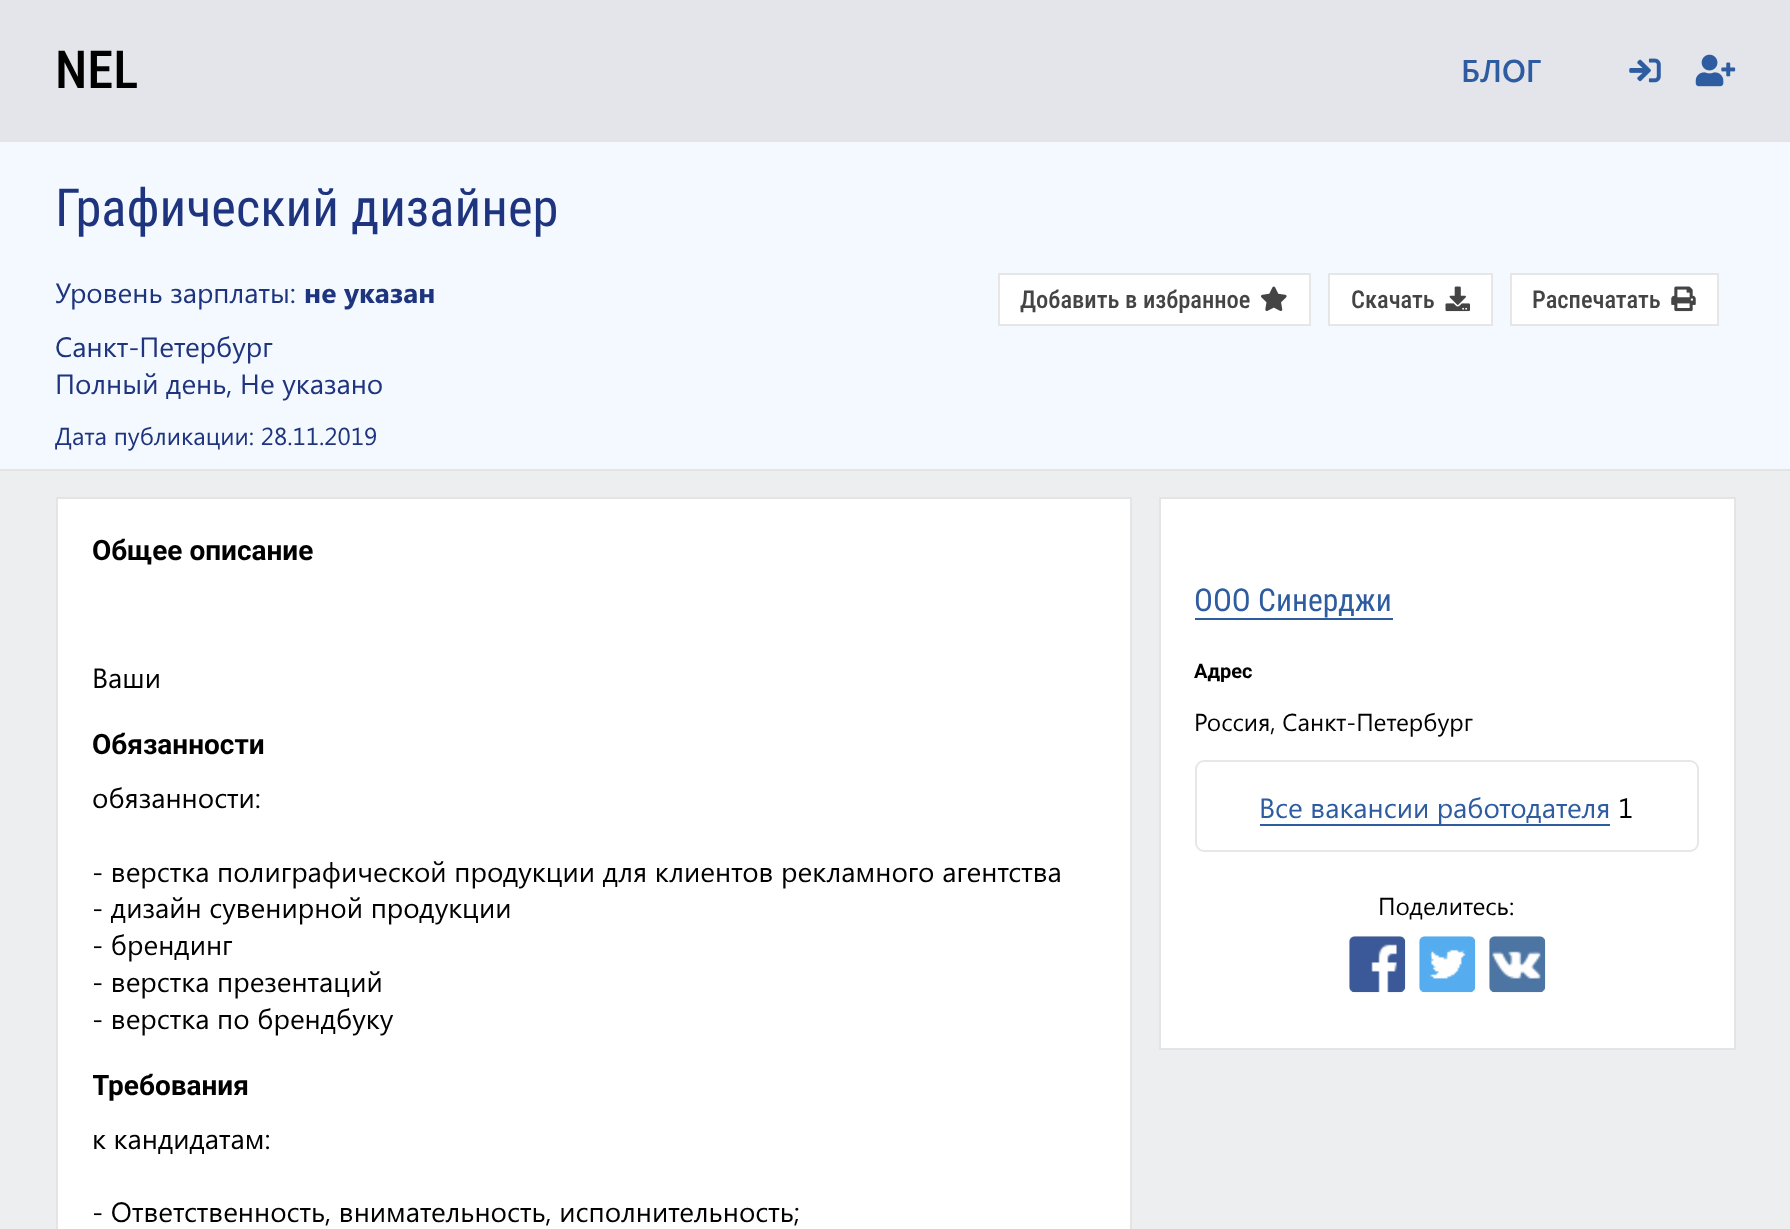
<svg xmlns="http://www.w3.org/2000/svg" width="1790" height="1229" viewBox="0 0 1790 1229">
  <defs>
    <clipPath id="clip1"><rect x="93" y="534" width="1003" height="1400"/></clipPath>
  </defs>
  <rect width="100%" height="100%" fill="rgb(237,238,240)"/>
  <rect x="0" y="0" width="1790" height="140" fill="rgb(227,229,234)"/>
  <rect x="0" y="140" width="1790" height="2" fill="rgb(228,228,228)"/>
  <text x="55" y="88" font-family="Roboto Condensed" font-size="52.5" font-weight="500" fill="rgb(0,0,0)">NEL</text>
  <text x="1461" y="82" font-family="Segoe UI" font-size="31.5" font-weight="600" fill="rgb(46,92,161)">БЛОГ</text>
  <image x="1629" y="58" width="32" height="25" href="pic1.png"/>
  <image x="1695" y="54" width="41" height="33" href="pic2.png"/>
  <rect x="0" y="142" width="1790" height="327" fill="rgb(243,249,255)"/>
  <rect x="0" y="469" width="1790" height="2" fill="rgb(228,228,228)"/>
  <text x="55" y="226" font-family="Roboto Condensed" font-size="52.5" fill="rgb(31,52,126)">Графический дизайнер</text>
  <text x="55" y="303" font-family="Segoe UI" font-size="28" fill="rgb(31,52,126)">Уровень зарплаты:</text>
  <text x="304" y="303" font-family="Segoe UI" font-size="28" font-weight="bold" fill="rgb(31,52,126)">не указан</text>
  <rect x="999" y="274" width="311" height="51" fill="rgb(255,255,255)" stroke="rgb(230,230,230)" stroke-width="2"/>
  <text x="1020" y="308" font-family="Roboto Condensed" font-size="24.5" font-weight="500" fill="rgb(68,68,68)">Добавить в избранное</text>
  <image x="1261" y="286" width="26" height="25" href="pic3.png"/>
  <rect x="1329" y="274" width="163" height="51" fill="rgb(255,255,255)" stroke="rgb(230,230,230)" stroke-width="2"/>
  <text x="1351" y="308" font-family="Roboto Condensed" font-size="24.5" font-weight="500" fill="rgb(68,68,68)">Скачать</text>
  <image x="1445" y="286" width="25" height="26" href="pic4.png"/>
  <rect x="1511" y="274" width="207" height="51" fill="rgb(255,255,255)" stroke="rgb(230,230,230)" stroke-width="2"/>
  <text x="1532" y="308" font-family="Roboto Condensed" font-size="24.5" font-weight="500" fill="rgb(68,68,68)">Распечатать</text>
  <image x="1671" y="286" width="25" height="26" href="pic5.png"/>
  <g font-family="Segoe UI" font-size="28" fill="rgb(31,52,126)">
    <text>
      <tspan x="55" y="357">Санкт-Петербург</tspan>
      <tspan x="55" y="394">Полный день, Не указано</tspan>
    </text>
  </g>
  <text x="55" y="445" font-family="Segoe UI" font-size="24.5" fill="rgb(31,52,126)">Дата публикации: 28.11.2019</text>
  <rect x="57" y="498" width="1074" height="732" fill="rgb(255,255,255)" stroke="rgb(228,228,228)" stroke-width="2"/>
  <text x="92" y="560" font-family="Roboto" font-size="28" font-weight="bold" fill="rgb(0,0,0)">Общее описание</text>
  <text x="92" y="688" font-family="Segoe UI" font-size="28" fill="rgb(0,0,0)">Ваши</text>
  <text x="92" y="754" font-family="Roboto" font-size="28" font-weight="bold" fill="rgb(0,0,0)">Обязанности</text>
  <g font-family="Segoe UI" font-size="28" fill="rgb(0,0,0)">
    <text x="92" y="808">обязанности:</text>
    <text>
      <tspan x="92" y="882">- верстка полиграфической продукции для клиентов рекламного агентства</tspan>
      <tspan x="92" y="918">- дизайн сувенирной продукции</tspan>
      <tspan x="92" y="955">- брендинг</tspan>
      <tspan x="92" y="992">- верстка презентаций</tspan>
      <tspan x="92" y="1029">- верстка по брендбуку</tspan>
    </text>
  </g>
  <g clip-path="url(#clip1)">
    <text x="92" y="1095" font-family="Roboto" font-size="28" font-weight="bold" fill="rgb(0,0,0)">Требования</text>
  </g>
  <g font-family="Segoe UI" font-size="28" fill="rgb(0,0,0)">
    <text x="92" y="1149">к кандидатам:</text>
    <text x="92" y="1222">- Ответственность, внимательность, исполнительность;</text>
  </g>
  <rect x="1160" y="498" width="575" height="551" fill="rgb(255,255,255)" stroke="rgb(228,228,228)" stroke-width="2"/>
  <text x="1194" y="611" font-family="Roboto Condensed" font-size="31.5" fill="rgb(46,92,161)">ООО Синерджи</text>
  <rect x="1195" y="618" width="198" height="2" fill="rgb(46,92,161)"/>
  <text x="1194" y="678" font-family="Roboto" font-size="20" font-weight="bold" fill="rgb(0,0,0)">Адрес</text>
  <text x="1194" y="731" font-family="Segoe UI" font-size="24.5" fill="rgb(0,0,0)">Россия, Санкт-Петербург</text>
  <rect x="1196" y="761" width="502" height="90" rx="8" fill="none" stroke="rgb(231,231,231)" stroke-width="2"/>
  <rect x="1260" y="824" width="350" height="2" fill="rgb(46,92,161)"/>
  <text x="1259" y="818" font-family="Segoe UI" font-size="28" fill="rgb(46,92,161)">Все вакансии работодателя</text>
  <text x="1618" y="818" font-family="Segoe UI" font-size="28" fill="rgb(0,0,0)">1</text>
  <text x="1378" y="915" font-family="Segoe UI" font-size="24.5" fill="rgb(0,0,0)">Поделитесь:</text>
  <image x="1349" y="936" width="57" height="57" href="pic6.png"/>
  <image x="1419" y="936" width="57" height="57" href="pic7.png"/>
  <image x="1489" y="936" width="57" height="57" href="pic8.png"/>
</svg>
